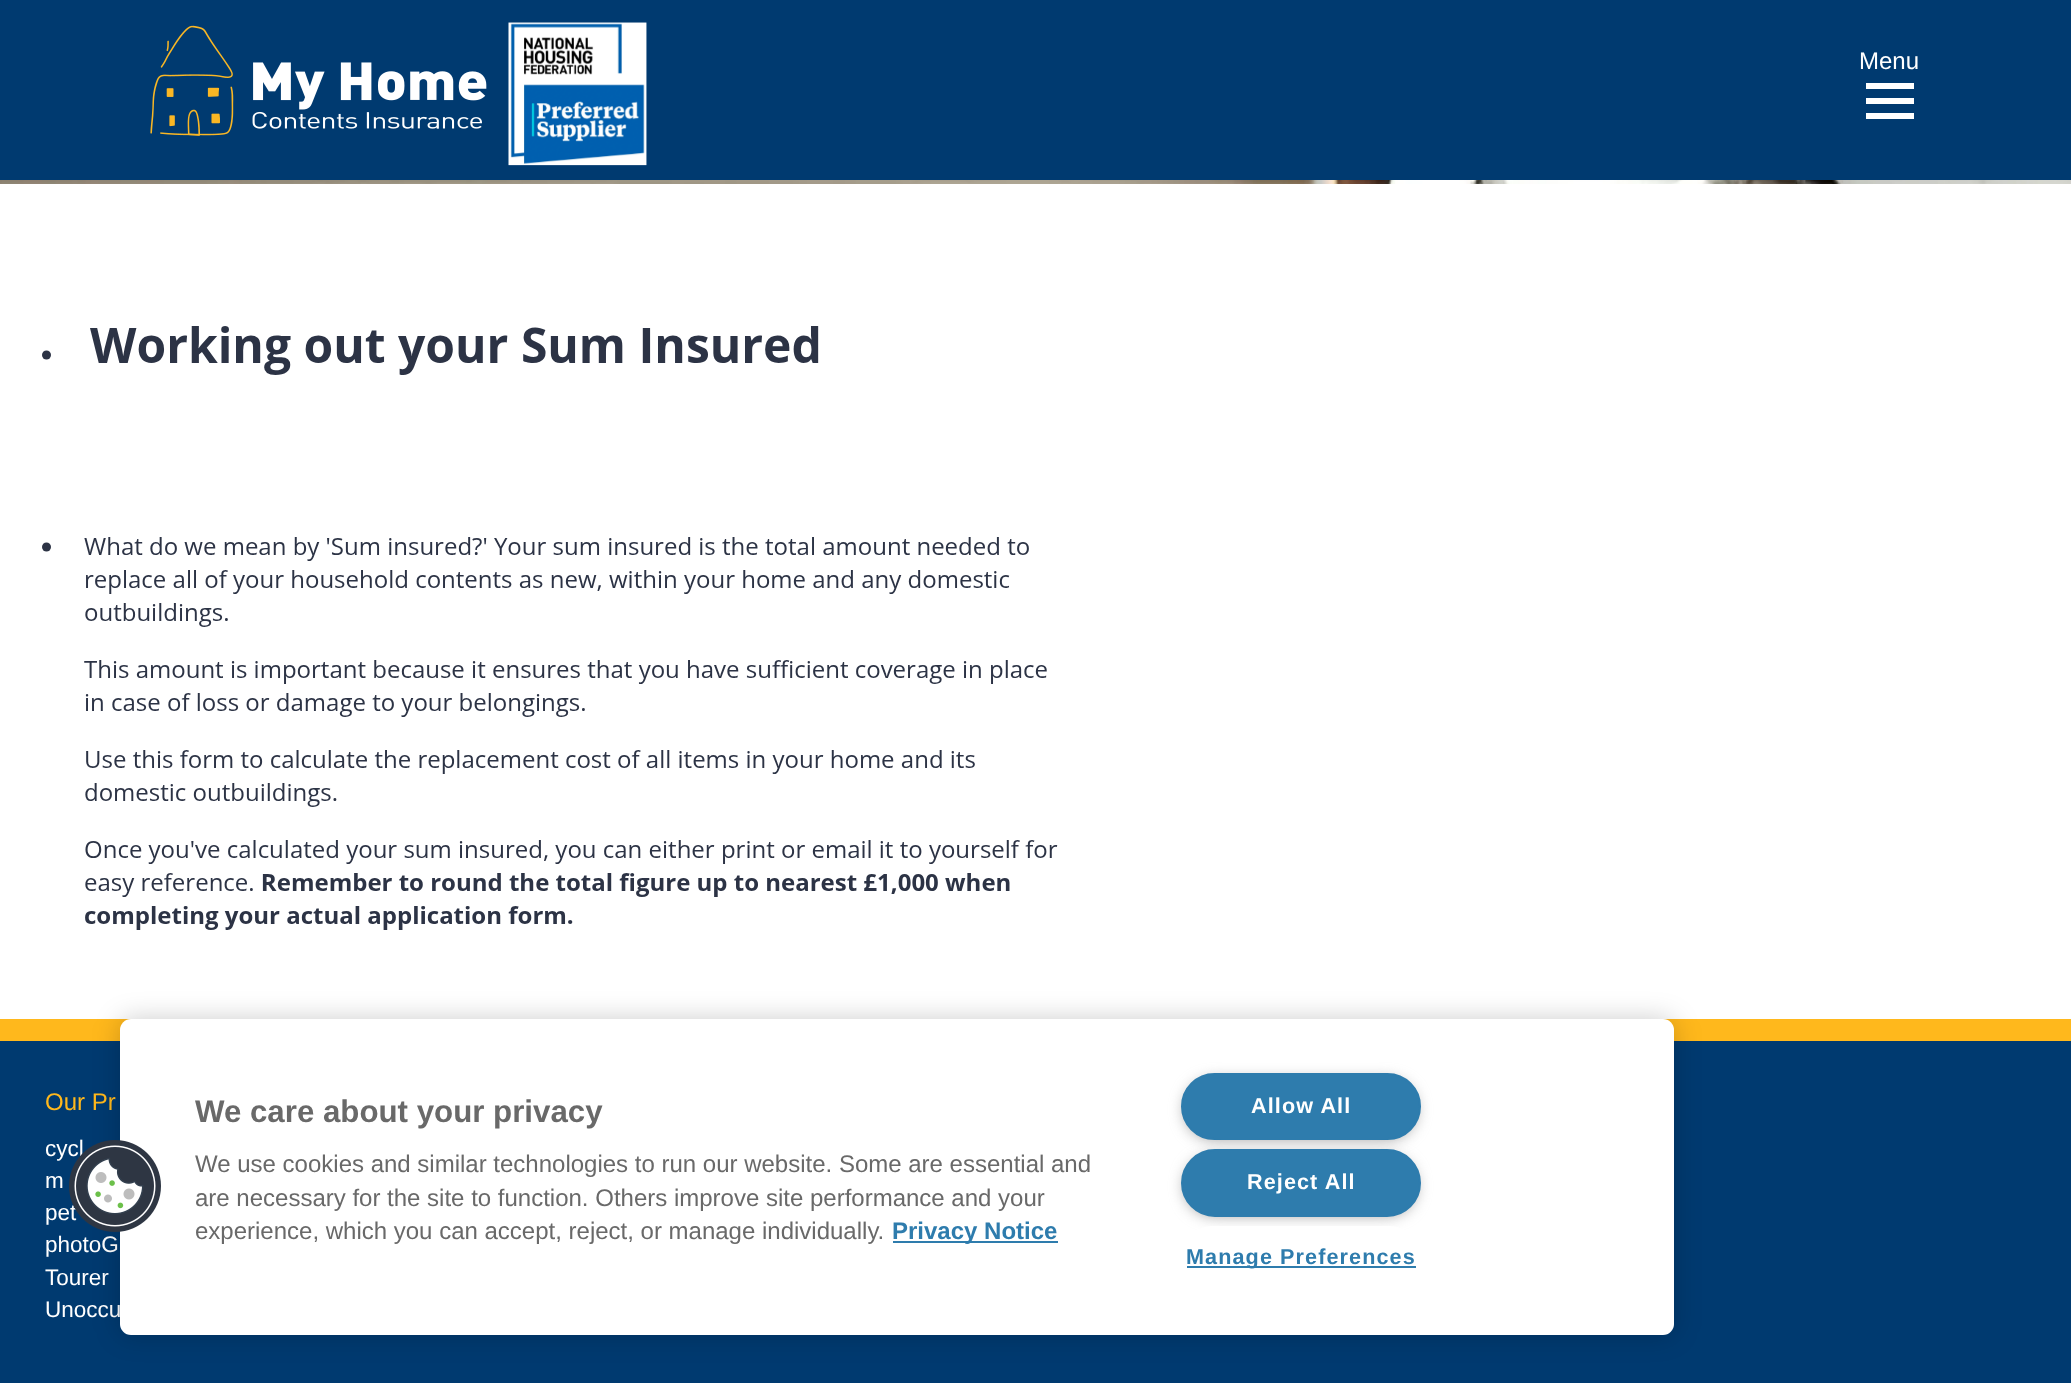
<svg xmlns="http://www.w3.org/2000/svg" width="2071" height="1383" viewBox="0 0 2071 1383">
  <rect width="100%" height="100%" fill="rgb(255,255,255)"/>
  <rect x="0" y="0" width="2071" height="180" fill="rgb(0,58,112)"/>
  <image x="150" y="25" width="337" height="111" href="pic1.png"/>
  <image x="508" y="22" width="139" height="144" href="pic2.png"/>
  <text x="1859" y="69" font-family="Liberation Sans" font-size="24" fill="rgb(255,255,255)">Menu</text>
  <rect x="1866" y="83" width="48" height="6" fill="rgb(255,255,255)"/>
  <rect x="1866" y="98" width="48" height="6" fill="rgb(255,255,255)"/>
  <rect x="1866" y="113" width="48" height="6" fill="rgb(255,255,255)"/>
  <image x="0" y="180" width="2071" height="4" href="pic3.png"/>
  <image x="42" y="326" width="1016" height="604" href="pic4.png"/>
  <rect x="0" y="1041" width="2071" height="342" fill="rgb(0,58,112)"/>
  <rect x="0" y="1019" width="2071" height="22" fill="rgb(255,184,28)"/>
  <text x="45" y="1110" font-family="Liberation Sans" font-size="24" fill="rgb(255,184,28)">Our Pr</text>
  <g font-family="Liberation Sans" font-size="22.5" fill="rgb(255,255,255)">
    <text>
      <tspan x="45" y="1156">cycl</tspan>
      <tspan x="45" y="1188">m</tspan>
      <tspan x="45" y="1220">pet</tspan>
      <tspan x="45" y="1252">photoG</tspan>
      <tspan x="45" y="1285">Tourer</tspan>
      <tspan x="45" y="1317">Unoccu</tspan>
    </text>
  </g>
  <rect x="120" y="1019" width="1554" height="316" rx="11" fill="rgba(0,0,0,0.2)" filter="blur(13.5px)"/>
  <rect x="120" y="1019" width="1554" height="316" rx="11" fill="rgb(255,255,255)"/>
  <image x="69" y="1140" width="92" height="92" href="pic5.png"/>
  <text x="195" y="1122" font-family="Liberation Sans" font-size="31.25" font-weight="bold" fill="rgb(105,105,105)">We care about your privacy</text>
  <g font-family="Liberation Sans" font-size="24" fill="rgb(105,105,105)">
    <text>
      <tspan x="195" y="1172">We use cookies and similar technologies to run our website. Some are essential and</tspan>
      <tspan x="195" y="1206">are necessary for the site to function. Others improve site performance and your</tspan>
      <tspan x="195" y="1239">experience, which you can accept, reject, or manage individually.</tspan>
    </text>
  </g>
  <rect x="893" y="1241" width="165" height="2" fill="rgb(46,124,173)"/>
  <text x="892" y="1239" font-family="Liberation Sans" font-size="24" font-weight="bold" fill="rgb(46,124,173)">Privacy Notice</text>
  <rect x="1185" y="1080" width="231" height="59" rx="29.5" fill="rgb(153,153,153)" filter="blur(7.5px)"/>
  <rect x="1182" y="1074" width="238" height="65" rx="32.5" fill="rgb(46,124,173)" stroke="rgb(46,124,173)" stroke-width="2"/>
  <text x="1251" y="1113" font-family="Liberation Sans" font-size="21.6" font-weight="bold" letter-spacing="1.1" fill="rgb(255,255,255)">Allow All</text>
  <rect x="1185" y="1157" width="231" height="58" rx="29" fill="rgb(153,153,153)" filter="blur(7.5px)"/>
  <rect x="1182" y="1150" width="238" height="66" rx="33" fill="rgb(46,124,173)" stroke="rgb(46,124,173)" stroke-width="2"/>
  <text x="1247" y="1189" font-family="Liberation Sans" font-size="21.6" font-weight="bold" letter-spacing="1.1" fill="rgb(255,255,255)">Reject All</text>
  <rect x="1181" y="1226" width="240" height="64" rx="32" fill="rgb(255,255,255)"/>
  <rect x="1187" y="1266" width="229" height="2" fill="rgb(46,124,173)"/>
  <text x="1186" y="1264" font-family="Liberation Sans" font-size="21.6" font-weight="bold" letter-spacing="1.1" fill="rgb(46,124,173)">Manage Preferences</text>
</svg>
